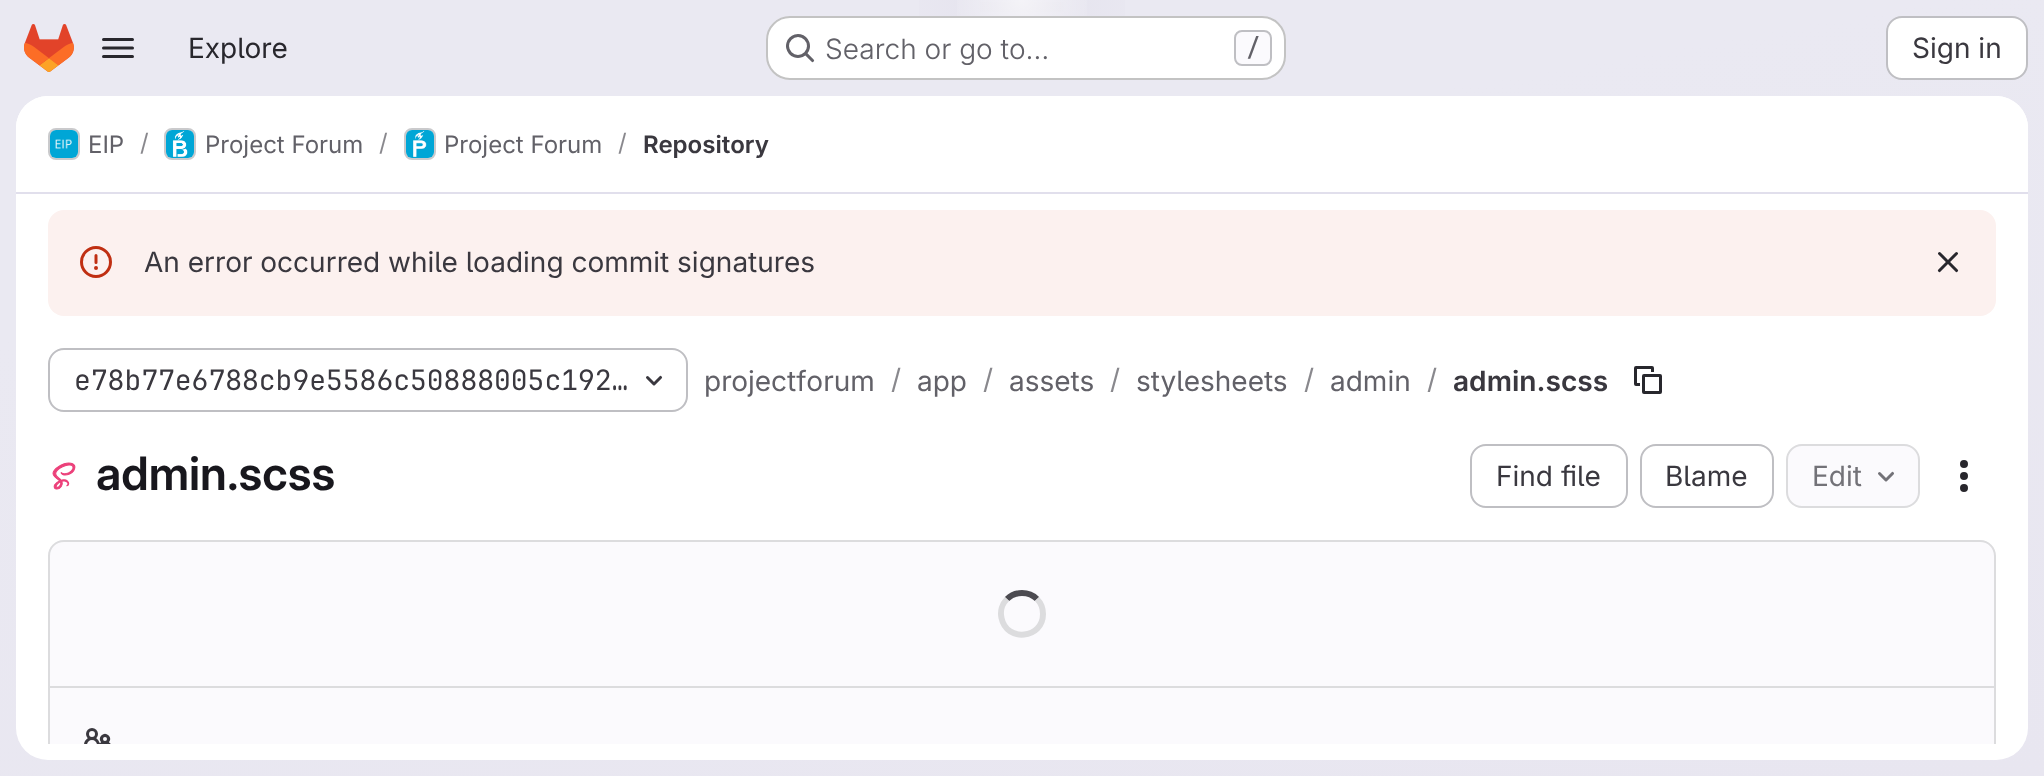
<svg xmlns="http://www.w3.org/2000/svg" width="2044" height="776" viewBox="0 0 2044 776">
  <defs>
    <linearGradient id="g1" gradientUnits="userSpaceOnUse" x1="1119" y1="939" x2="925" y2="-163"><stop offset="0" stop-color="rgb(232,230,240)"/><stop offset="0.7" stop-color="rgb(234,233,242)"/></linearGradient>
    <radialGradient id="g2" gradientUnits="userSpaceOnUse" cx="0" cy="0" r="1" gradientTransform="matrix(1022 0 0 776 1022 0)"><stop offset="0" stop-color="rgb(228,226,237)"/><stop offset="0.14" stop-color="rgb(228,226,237)" stop-opacity="0"/></radialGradient>
    <radialGradient id="g3" gradientUnits="userSpaceOnUse" cx="0" cy="0" r="1" gradientTransform="matrix(1022 0 0 776 1022 0)"><stop offset="0" stop-color="rgb(228,226,236)"/><stop offset="0.1" stop-color="rgb(228,226,236)" stop-opacity="0"/></radialGradient>
    <radialGradient id="g4" gradientUnits="userSpaceOnUse" cx="1022" cy="0" r="1283"><stop offset="0" stop-color="rgb(255,255,255)" stop-opacity="0.6"/><stop offset="0.06" stop-color="rgb(255,255,255)" stop-opacity="0"/></radialGradient>
    <clipPath id="clip1"><rect x="16" y="194" width="2012" height="550"/></clipPath>
  </defs>
  <rect width="100%" height="100%" fill="rgb(255,255,255)"/>
  <rect x="0" y="0" width="2044" height="776" fill="url(#g1)"/>
  <rect x="919" y="0" width="206" height="79" fill="url(#g2)"/>
  <rect x="980" y="2" width="84" height="10" fill="url(#g3)"/>
  <rect x="957" y="0" width="130" height="16" fill="url(#g4)"/>
  <image x="24" y="24" width="50" height="48" href="pic1.png"/>
  <image x="102" y="38" width="32" height="20" href="pic2.png"/>
  <text x="188" y="58" font-family="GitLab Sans" font-size="28" fill="rgb(40,39,45)">Explore</text>
  <rect x="766" y="16" width="520" height="64" rx="24" fill="rgb(255,255,255)"/>
  <rect x="767" y="17" width="518" height="62" rx="23" fill="none" stroke="rgba(5,5,6,0.24)" stroke-width="2"/>
  <image x="786" y="34" width="29" height="29" href="pic3.png"/>
  <text x="825" y="59" font-family="GitLab Sans" font-size="28" font-weight="300" fill="rgb(98,97,104)">Search or go to…</text>
  <rect x="1235" y="31" width="36" height="34" rx="7" fill="rgb(251,250,253)" stroke="rgb(191,191,195)" stroke-width="2"/>
  <text x="1246" y="56" font-family="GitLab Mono" font-size="24" font-weight="500" fill="rgb(98,97,104)">/</text>
  <rect x="1887" y="17" width="140" height="62" rx="15" fill="rgb(255,255,255)" stroke="rgb(191,191,195)" stroke-width="2"/>
  <text x="1912" y="58" font-family="GitLab Sans" font-size="28" fill="rgb(58,56,63)">Sign in</text>
  <rect x="16" y="96" width="2012" height="664" rx="32" fill="rgb(255,255,255)"/>
  <path d="M48 96H1996C2013.5 96 2028 110.5 2028 128V194H16V128C16 110.5 30.5 96 48 96Z" fill="rgb(255,255,255)"/>
  <rect x="16" y="192" width="2012" height="2" fill="rgb(225,223,236)"/>
  <rect x="49" y="129" width="30" height="30" rx="7" fill="none" stroke="rgb(220,220,222)" stroke-width="2"/>
  <image x="50" y="130" width="28" height="28" href="pic4.png"/>
  <rect x="49" y="129" width="30" height="30" rx="7" fill="none" stroke="rgba(5,5,6,0.08)" stroke-width="2"/>
  <text x="88" y="153" font-family="GitLab Sans" font-size="24" fill="rgb(98,97,104)">EIP</text>
  <text x="140" y="151" font-family="GitLab Sans" font-size="24" fill="rgb(137,136,141)">/</text>
  <rect x="165" y="129" width="30" height="30" rx="7" fill="none" stroke="rgb(220,220,222)" stroke-width="2"/>
  <image x="166" y="130" width="28" height="28" href="pic5.png"/>
  <rect x="165" y="129" width="30" height="30" rx="7" fill="none" stroke="rgba(5,5,6,0.08)" stroke-width="2"/>
  <text x="205" y="153" font-family="GitLab Sans" font-size="24" fill="rgb(98,97,104)">Project Forum</text>
  <text x="379" y="151" font-family="GitLab Sans" font-size="24" fill="rgb(137,136,141)">/</text>
  <rect x="405" y="129" width="30" height="30" rx="7" fill="none" stroke="rgb(220,220,222)" stroke-width="2"/>
  <image x="406" y="130" width="28" height="28" href="pic6.png"/>
  <rect x="405" y="129" width="30" height="30" rx="7" fill="none" stroke="rgba(5,5,6,0.08)" stroke-width="2"/>
  <text x="444" y="153" font-family="GitLab Sans" font-size="24" fill="rgb(98,97,104)">Project Forum</text>
  <text x="618" y="151" font-family="GitLab Sans" font-size="24" fill="rgb(137,136,141)">/</text>
  <text x="643" y="153" font-family="GitLab Sans" font-size="24" font-weight="600" fill="rgb(58,56,63)">Repository</text>
  <rect x="48" y="210" width="1948" height="106" rx="16" fill="rgb(252,241,239)"/>
  <image x="80" y="246" width="32" height="32" href="pic7.png"/>
  <text x="144" y="272" font-family="GitLab Sans" font-size="28" fill="rgb(58,56,63)">An error occurred while loading commit signatures</text>
  <image x="1937" y="252" width="22" height="21" href="pic8.png"/>
  <rect x="49" y="349" width="638" height="62" rx="15" fill="none" stroke="rgb(191,191,195)" stroke-width="2"/>
  <text x="74" y="390" font-family="GitLab Mono" font-size="28" fill="rgb(58,56,63)">e78b77e6788cb9e5586c50888005c192…</text>
  <image x="646" y="375" width="17" height="11" href="pic9.png"/>
  <text x="704" y="391" font-family="GitLab Sans" font-size="28" fill="rgb(98,97,104)">projectforum</text>
  <text x="891" y="389" font-family="GitLab Sans" font-size="28" fill="rgb(137,136,141)">/</text>
  <text x="917" y="391" font-family="GitLab Sans" font-size="28" fill="rgb(98,97,104)">app</text>
  <text x="983" y="389" font-family="GitLab Sans" font-size="28" fill="rgb(137,136,141)">/</text>
  <text x="1009" y="391" font-family="GitLab Sans" font-size="28" fill="rgb(98,97,104)">assets</text>
  <text x="1110" y="389" font-family="GitLab Sans" font-size="28" fill="rgb(137,136,141)">/</text>
  <text x="1136" y="391" font-family="GitLab Sans" font-size="28" fill="rgb(98,97,104)">stylesheets</text>
  <text x="1304" y="389" font-family="GitLab Sans" font-size="28" fill="rgb(137,136,141)">/</text>
  <text x="1330" y="391" font-family="GitLab Sans" font-size="28" fill="rgb(98,97,104)">admin</text>
  <text x="1427" y="389" font-family="GitLab Sans" font-size="28" fill="rgb(137,136,141)">/</text>
  <text x="1453" y="391" font-family="GitLab Sans" font-size="28" font-weight="600" fill="rgb(58,56,63)">admin.scss</text>
  <image x="1634" y="366" width="28" height="28" href="pic10.png"/>
  <image x="52" y="462" width="24" height="28" href="pic11.png"/>
  <text x="96" y="490" font-family="'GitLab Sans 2'" font-size="46" font-weight="600" fill="rgb(24,23,29)">admin.scss</text>
  <rect x="1471" y="445" width="156" height="62" rx="15" fill="none" stroke="rgb(191,191,195)" stroke-width="2"/>
  <text x="1496" y="486" font-family="GitLab Sans" font-size="28" fill="rgb(58,56,63)">Find file</text>
  <rect x="1641" y="445" width="132" height="62" rx="15" fill="none" stroke="rgb(191,191,195)" stroke-width="2"/>
  <text x="1665" y="486" font-family="GitLab Sans" font-size="28" fill="rgb(58,56,63)">Blame</text>
  <rect x="1787" y="445" width="132" height="62" rx="15" fill="rgb(251,250,253)" stroke="rgb(220,220,222)" stroke-width="2"/>
  <text x="1812" y="486" font-family="GitLab Sans" font-size="28" fill="rgb(115,114,120)">Edit</text>
  <image x="1878" y="471" width="16" height="11" href="pic12.png"/>
  <image x="1960" y="460" width="8" height="32" href="pic13.png"/>
  <path d="M64 540H1980C1989 540 1996 547 1996 556V744H48V556C48 547 55 540 64 540Z" fill="rgb(251,250,253)"/>
  <g clip-path="url(#clip1)">
    <path d="M64 540C55 540 48 547 48 556V760H50V556C50 548 56 542 64 542H1980C1988 542 1994 548 1994 556V760H1996V556C1996 547 1989 540 1980 540Z" fill="rgb(220,220,222)"/>
  </g>
  <path d="M1007 599C1015 591 1029 591 1037 599" fill="none" stroke="rgb(76,75,81)" stroke-width="6"/>
  <path d="M1037 599C1041 603 1043 608.5 1043 614C1043 639 1006.5 642.5 1001.5 618C1000 611.5 1002 604 1007 599" fill="none" stroke="rgb(220,220,222)" stroke-width="6"/>
  <rect x="50" y="686" width="1944" height="2" fill="rgb(220,220,222)"/>
  <image x="84" y="728" width="27" height="16" href="pic14.png"/>
</svg>
